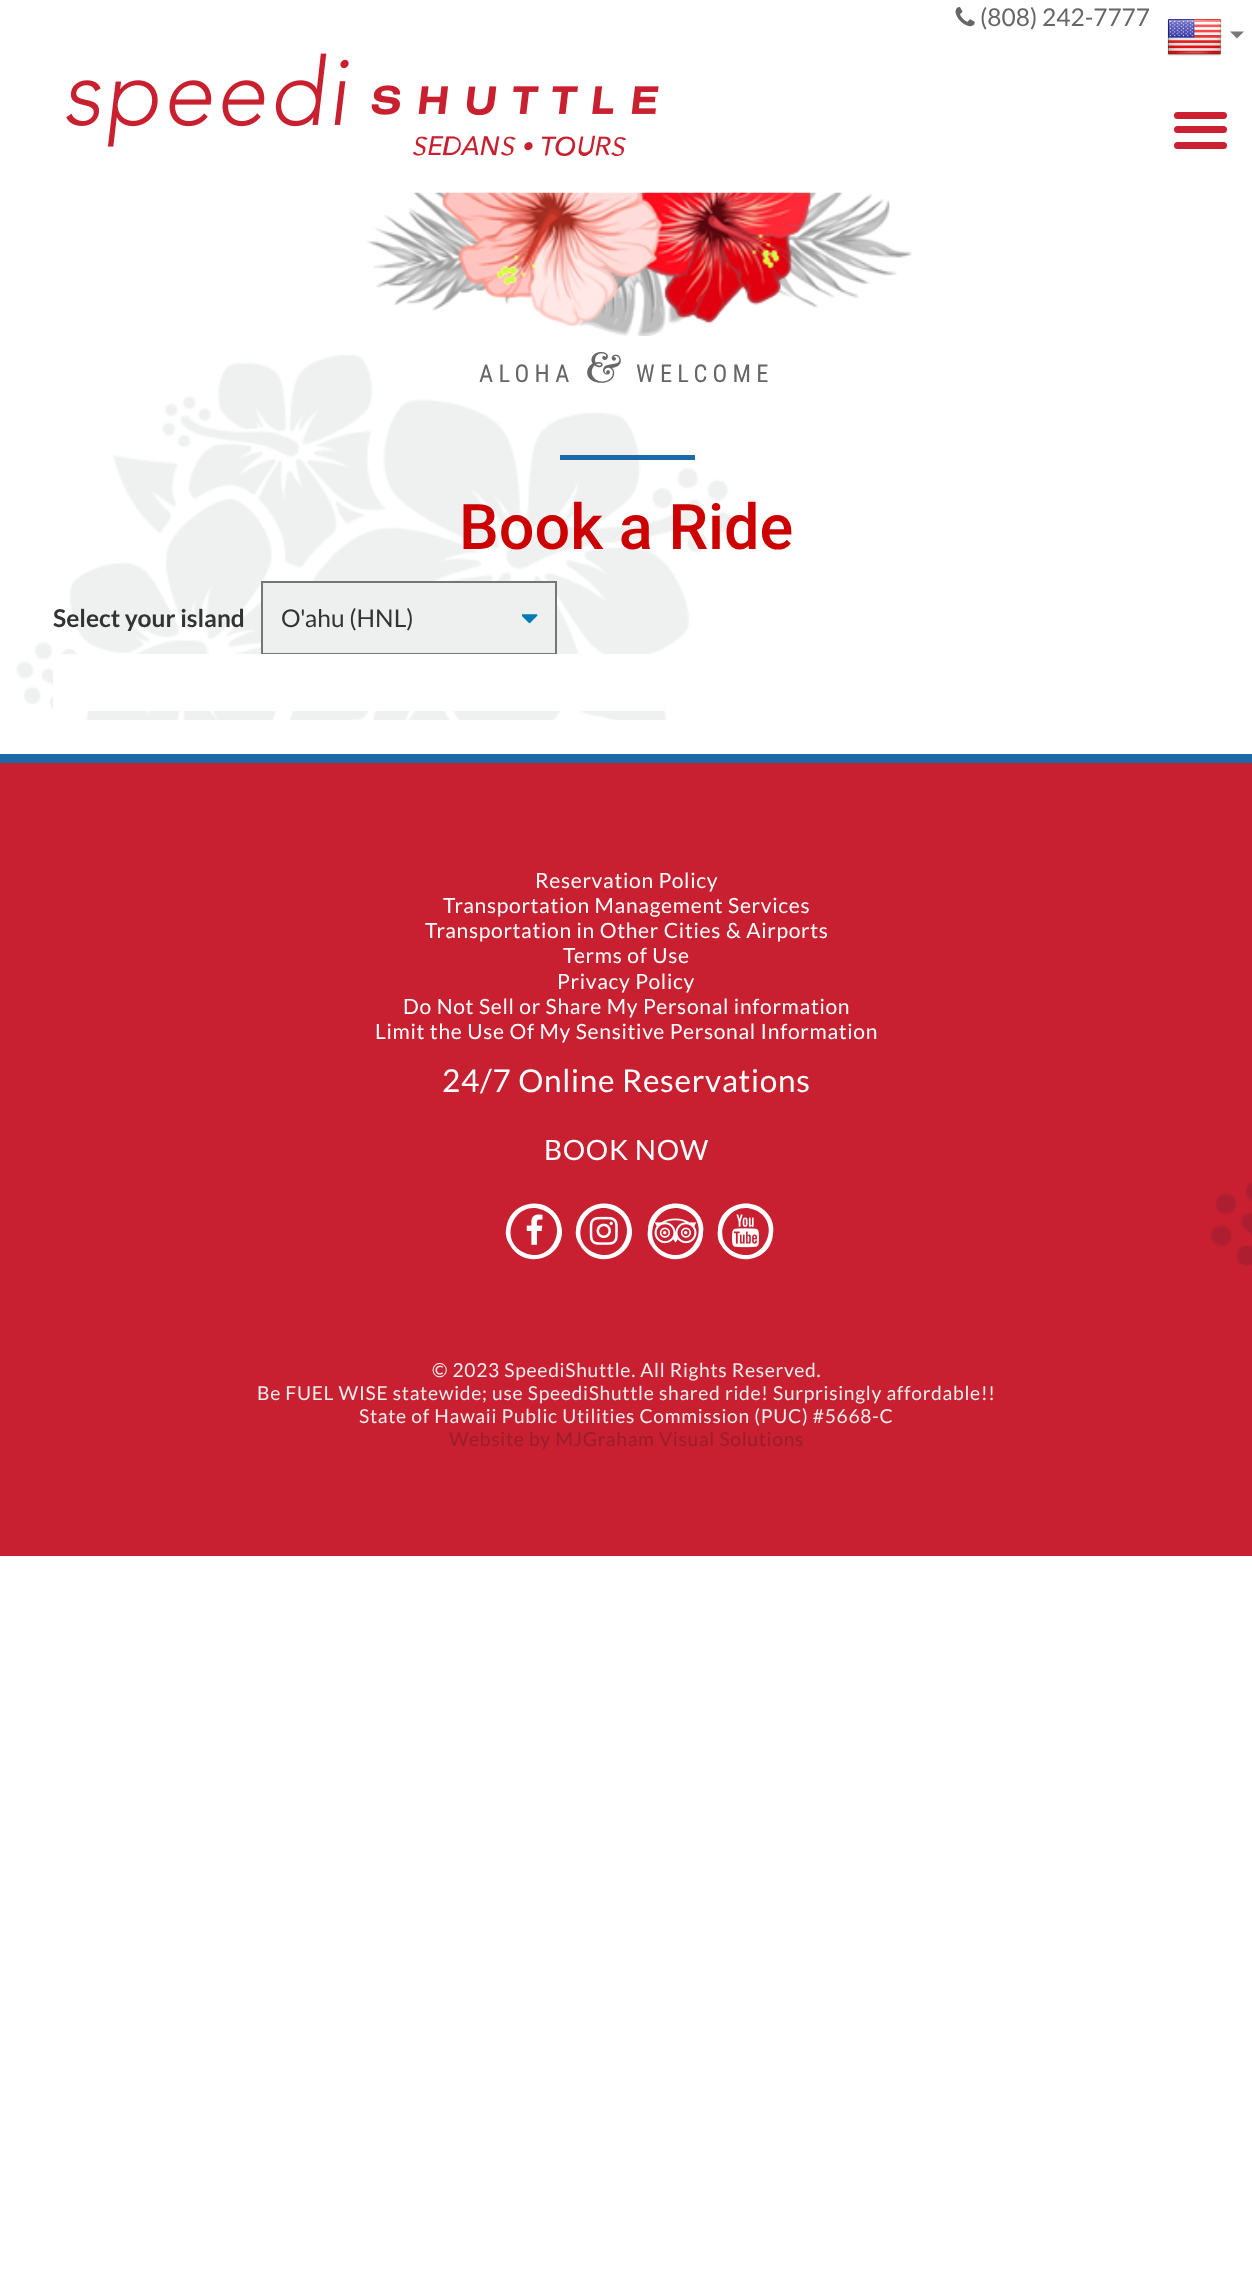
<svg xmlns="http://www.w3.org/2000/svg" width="1252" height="2290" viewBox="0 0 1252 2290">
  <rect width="100%" height="100%" fill="rgb(255,255,255)"/>
  <image x="955" y="7" width="20" height="20" href="pic1.png"/>
  <text x="980" y="26" font-family="Lato" font-size="24.5" fill="rgb(102,102,102)">(808) 242-7777</text>
  <image x="1167" y="19" width="55" height="37" href="pic2.png"/>
  <path d="M1230 31.5H1244L1237 38.5Z" fill="rgb(119,119,119)"/>
  <image x="66" y="53" width="593" height="104" href="pic3.png"/>
  <rect x="1174" y="112" width="53" height="7" rx="3.5" fill="rgb(203,32,49)"/>
  <rect x="1174" y="126" width="53" height="7" rx="3.5" fill="rgb(203,32,49)"/>
  <rect x="1174" y="142" width="53" height="7" rx="3.5" fill="rgb(203,32,49)"/>
  <image x="16" y="354" width="716" height="366" href="pic4.png"/>
  <image x="366" y="192" width="546" height="144" href="pic5.png"/>
  <text x="479" y="382" font-family="Roboto Condensed" font-size="24.5" letter-spacing="5.25" fill="rgb(102,102,102)">ALOHA</text>
  <image x="587" y="351" width="34" height="32" href="pic6.png"/>
  <text x="636" y="382" font-family="Roboto Condensed" font-size="24.5" letter-spacing="5.25" fill="rgb(102,102,102)">WELCOME</text>
  <rect x="560" y="455" width="135" height="5" fill="rgb(28,106,168)"/>
  <text x="459" y="549" font-family="Roboto" font-size="63" font-weight="500" fill="rgb(204,0,0)">Book a Ride</text>
  <text x="53" y="627" font-family="Lato" font-size="24.5" font-weight="bold" fill="rgb(51,51,51)">Select your island</text>
  <rect x="263" y="583" width="292" height="70" fill="rgb(238,240,240)"/>
  <image x="522" y="614" width="16" height="10" href="pic7.png"/>
  <rect x="262" y="582" width="294" height="72" fill="none" stroke="rgb(118,118,118)" stroke-width="2"/>
  <text x="281" y="627" font-family="Lato" font-size="24.5" fill="rgb(51,51,51)">O'ahu (HNL)</text>
  <rect x="53" y="654" width="613" height="57" fill="rgb(255,255,255)"/>
  <rect x="0" y="763" width="1252" height="793" fill="rgb(200,32,48)"/>
  <image x="1210" y="1182" width="42" height="85" href="pic8.png"/>
  <rect x="0" y="754" width="1252" height="9" fill="rgb(28,106,168)"/>
  <g font-family="Lato" font-size="21" letter-spacing="0.7" fill="rgb(255,255,255)">
    <text x="535" y="888">Reservation Policy</text>
    <text x="443" y="913">Transportation Management Services</text>
    <text x="425" y="938">Transportation in Other Cities</text>
    <text x="726" y="938">&amp; Airports</text>
    <text x="563" y="963">Terms of Use</text>
    <text x="557" y="989">Privacy Policy</text>
    <text x="403" y="1014">Do Not Sell or Share My Personal information</text>
    <text x="375" y="1039">Limit the Use Of My Sensitive Personal Information</text>
  </g>
  <text x="442" y="1092" font-family="Lato" font-size="31.5" letter-spacing="0.7" fill="rgb(255,255,255)">24/7 Online Reservations</text>
  <text x="544" y="1160" font-family="Lato" font-size="28" letter-spacing="0.7" fill="rgb(255,255,255)">BOOK NOW</text>
  <path d="M543 1210C515 1198 496 1241 525 1253C553 1265 571 1222 543 1210ZM558 1217C561 1222 562 1228 562 1233C560 1261 523 1269 510 1245C507 1241 505 1235 506 1230C508 1202 544 1194 558 1217Z" fill="rgb(255,255,255)"/>
  <image x="526" y="1214" width="17" height="31" href="pic9.png"/>
  <path d="M613 1210C585 1198 566 1241 595 1253C623 1265 641 1222 613 1210ZM628 1217C631 1222 632 1228 632 1233C630 1261 593 1269 580 1245C577 1241 575 1235 576 1230C578 1202 614 1194 628 1217Z" fill="rgb(255,255,255)"/>
  <image x="589" y="1216" width="29" height="29" href="pic10.png"/>
  <path d="M685 1210C657 1198 638 1241 666 1253C694 1265 713 1222 685 1210ZM700 1217C703 1222 704 1228 703 1233C702 1261 665 1269 651 1245C648 1241 647 1235 648 1230C649 1202 686 1194 700 1217Z" fill="rgb(255,255,255)"/>
  <image x="654" y="1218" width="43" height="26" href="pic11.png"/>
  <path d="M755 1210C727 1198 708 1241 736 1253C764 1265 783 1222 755 1210ZM770 1217C773 1222 774 1228 773 1233C772 1261 735 1269 721 1245C718 1241 717 1235 718 1230C719 1202 756 1194 770 1217Z" fill="rgb(255,255,255)"/>
  <image x="732" y="1214" width="27" height="34" href="pic12.png"/>
  <g font-family="Lato" font-size="19.25" letter-spacing="0.7" fill="rgb(238,238,238)">
    <text x="432" y="1377">© 2023 SpeediShuttle. All Rights Reserved.</text>
    <text x="257" y="1400">Be FUEL WISE statewide; use SpeediShuttle shared ride! Surprisingly affordable!!</text>
    <text x="359" y="1423">State of Hawaii Public Utilities Commission (PUC) #5668-C</text>
  </g>
  <text x="449" y="1446" font-family="Lato" font-size="19.25" letter-spacing="0.7" fill="rgb(152,30,43)">Website by MJGraham Visual Solutions</text>
</svg>
